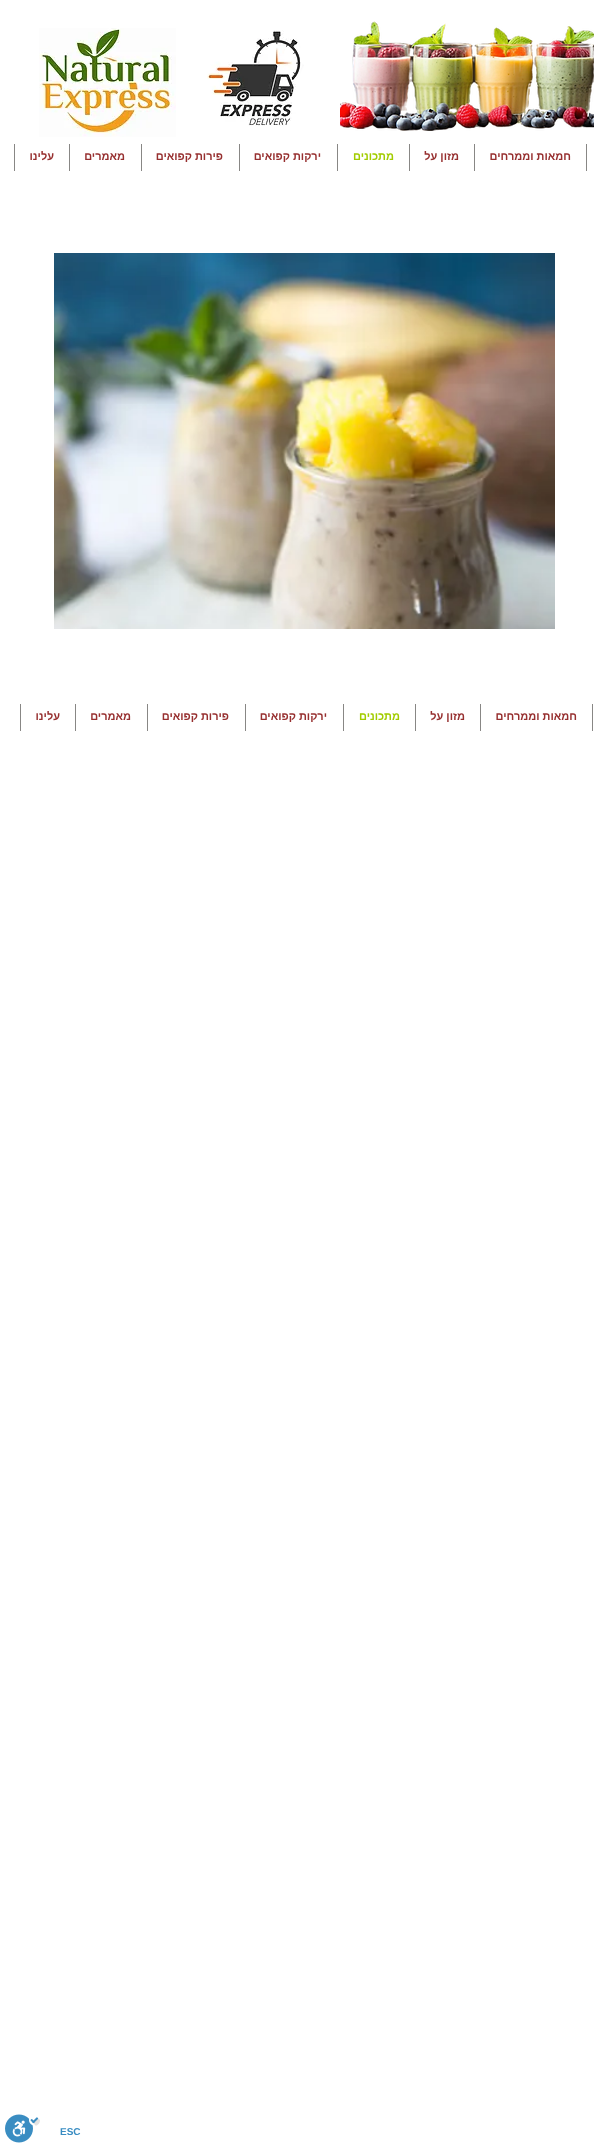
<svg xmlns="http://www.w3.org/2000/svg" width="594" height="2146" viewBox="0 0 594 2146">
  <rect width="100%" height="100%" fill="rgb(255,255,255)"/>
  <image x="340" y="21" width="254" height="110" href="pic1.png"/>
  <image x="207" y="30" width="97" height="96" href="pic2.png"/>
  <image x="39" y="28" width="137" height="109" href="pic3.png"/>
  <rect x="586" y="144" width="1" height="27" fill="rgb(136,135,133)"/>
  <rect x="474" y="144" width="1" height="27" fill="rgb(136,135,133)"/>
  <text x="571" y="160" font-family="Liberation Sans" font-size="11" font-weight="bold" direction="rtl" fill="rgb(151,48,48)">חמאות וממרחים</text>
  <rect x="409" y="144" width="1" height="27" fill="rgb(136,135,133)"/>
  <text x="459" y="160" font-family="Liberation Sans" font-size="11" font-weight="bold" direction="rtl" fill="rgb(151,48,48)">מזון על</text>
  <rect x="337" y="144" width="1" height="27" fill="rgb(136,135,133)"/>
  <text x="394" y="160" font-family="Liberation Sans" font-size="11" font-weight="bold" direction="rtl" fill="rgb(162,204,1)">מתכונים</text>
  <rect x="239" y="144" width="1" height="27" fill="rgb(136,135,133)"/>
  <text x="321" y="160" font-family="Liberation Sans" font-size="11" font-weight="bold" direction="rtl" fill="rgb(151,48,48)">ירקות קפואים</text>
  <rect x="141" y="144" width="1" height="27" fill="rgb(136,135,133)"/>
  <text x="223" y="160" font-family="Liberation Sans" font-size="11" font-weight="bold" direction="rtl" fill="rgb(151,48,48)">פירות קפואים</text>
  <rect x="69" y="144" width="1" height="27" fill="rgb(136,135,133)"/>
  <text x="125" y="160" font-family="Liberation Sans" font-size="11" font-weight="bold" direction="rtl" fill="rgb(151,48,48)">מאמרים</text>
  <rect x="14" y="144" width="1" height="27" fill="rgb(136,135,133)"/>
  <text x="54" y="160" font-family="Liberation Sans" font-size="11" font-weight="bold" direction="rtl" fill="rgb(151,48,48)">עלינו</text>
  <image x="54" y="253" width="501" height="376" href="pic4.png"/>
  <rect x="592" y="704" width="1" height="27" fill="rgb(136,135,133)"/>
  <rect x="480" y="704" width="1" height="27" fill="rgb(136,135,133)"/>
  <text x="577" y="720" font-family="Liberation Sans" font-size="11" font-weight="bold" direction="rtl" fill="rgb(151,48,48)">חמאות וממרחים</text>
  <rect x="415" y="704" width="1" height="27" fill="rgb(136,135,133)"/>
  <text x="465" y="720" font-family="Liberation Sans" font-size="11" font-weight="bold" direction="rtl" fill="rgb(151,48,48)">מזון על</text>
  <rect x="343" y="704" width="1" height="27" fill="rgb(136,135,133)"/>
  <text x="400" y="720" font-family="Liberation Sans" font-size="11" font-weight="bold" direction="rtl" fill="rgb(162,204,1)">מתכונים</text>
  <rect x="245" y="704" width="1" height="27" fill="rgb(136,135,133)"/>
  <text x="327" y="720" font-family="Liberation Sans" font-size="11" font-weight="bold" direction="rtl" fill="rgb(151,48,48)">ירקות קפואים</text>
  <rect x="147" y="704" width="1" height="27" fill="rgb(136,135,133)"/>
  <text x="229" y="720" font-family="Liberation Sans" font-size="11" font-weight="bold" direction="rtl" fill="rgb(151,48,48)">פירות קפואים</text>
  <rect x="75" y="704" width="1" height="27" fill="rgb(136,135,133)"/>
  <text x="131" y="720" font-family="Liberation Sans" font-size="11" font-weight="bold" direction="rtl" fill="rgb(151,48,48)">מאמרים</text>
  <rect x="20" y="704" width="1" height="27" fill="rgb(136,135,133)"/>
  <text x="60" y="720" font-family="Liberation Sans" font-size="11" font-weight="bold" direction="rtl" fill="rgb(151,48,48)">עלינו</text>
  <text x="60" y="2135" font-family="Liberation Sans" font-size="10" font-weight="bold" fill="rgb(58,141,194)">ESC</text>
  <image x="5" y="2114" width="35" height="29" href="pic5.png"/>
</svg>
